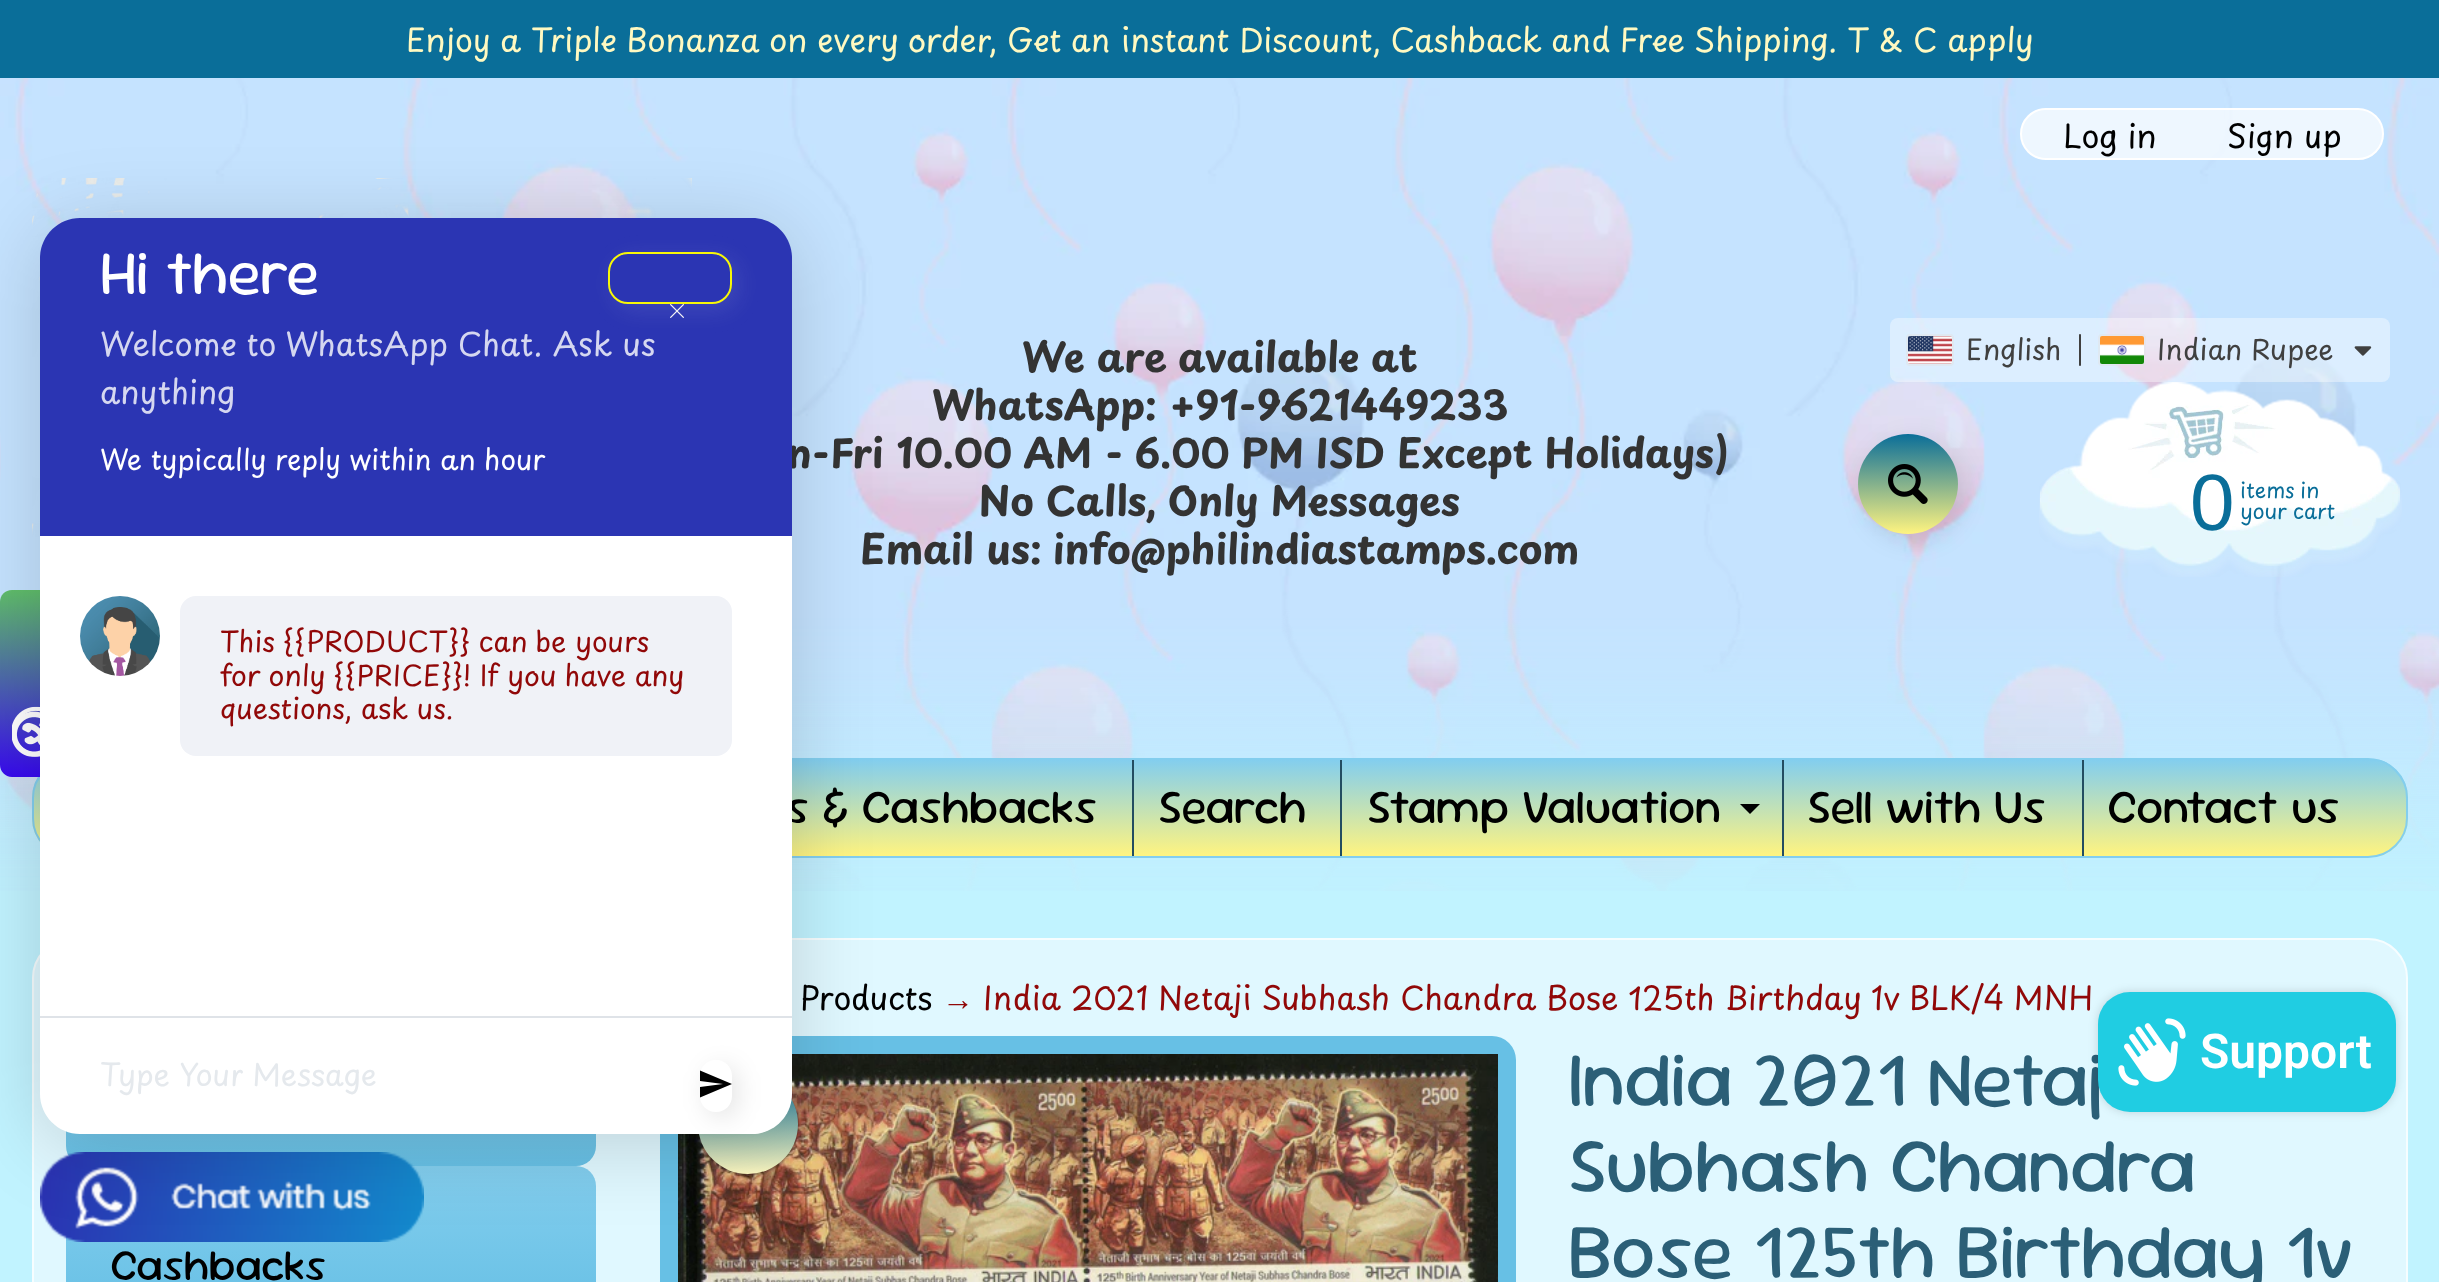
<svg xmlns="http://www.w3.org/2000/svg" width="2439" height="1282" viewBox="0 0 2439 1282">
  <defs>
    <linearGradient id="g1" gradientUnits="userSpaceOnUse" x1="1908" y1="434" x2="1908" y2="534"><stop offset="0" stop-color="rgb(10,110,153)"/><stop offset="1" stop-color="rgb(255,244,128)"/></linearGradient>
    <clipPath id="clip1"><rect x="32" y="758" width="2376" height="100" rx="40"/></clipPath>
    <linearGradient id="g2" gradientUnits="userSpaceOnUse" x1="1220" y1="760" x2="1220" y2="856"><stop offset="0" stop-color="rgb(131,206,238)"/><stop offset="1" stop-color="rgb(255,244,128)"/></linearGradient>
    <linearGradient id="g3" gradientUnits="userSpaceOnUse" x1="331" y1="1068" x2="331" y2="1166"><stop offset="0" stop-color="rgb(131,206,238)"/><stop offset="1" stop-color="rgb(103,192,229)"/></linearGradient>
    <linearGradient id="g4" gradientUnits="userSpaceOnUse" x1="331" y1="1166" x2="331" y2="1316"><stop offset="0" stop-color="rgb(131,206,238)"/><stop offset="1" stop-color="rgb(103,192,229)"/></linearGradient>
    <linearGradient id="g5" gradientUnits="userSpaceOnUse" x1="748" y1="1074" x2="748" y2="1174"><stop offset="0" stop-color="rgb(10,110,153)"/><stop offset="1" stop-color="rgb(255,249,193)"/></linearGradient>
    <linearGradient id="g6" gradientUnits="userSpaceOnUse" x1="38" y1="777" x2="38" y2="590"><stop offset="0" stop-color="rgb(56,10,240)"/><stop offset="1" stop-color="rgb(96,190,107)"/></linearGradient>
    <clipPath id="clip2"><path d="M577 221H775V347H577ZM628 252H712C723 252 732 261 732 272V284C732 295 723 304 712 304H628C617 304 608 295 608 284V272C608 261 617 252 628 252Z" clip-rule="evenodd"/></clipPath>
    <clipPath id="clip3"><path d="M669 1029H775V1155H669ZM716 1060C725 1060 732 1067 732 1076V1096C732 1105 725 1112 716 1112C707 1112 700 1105 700 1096V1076C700 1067 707 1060 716 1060Z" clip-rule="evenodd"/></clipPath>
  </defs>
  <rect width="100%" height="100%" fill="rgb(193,243,255)"/>
  <image x="0" y="78" width="2439" height="813" href="pic1.png"/>
  <rect x="0" y="0" width="2439" height="78" fill="rgb(10,110,153)"/>
  <g font-family="Playpen Sans" font-size="32" fill="rgb(255,249,193)">
    <text x="406" y="52">Enjoy a Triple Bonanza on every order,</text>
    <text x="1007" y="52">Get an instant Discount, Cashback and Free Shipping. T &amp; C apply</text>
  </g>
  <image x="32" y="178" width="660" height="359" href="pic2.png"/>
  <g font-family="Playpen Sans" font-size="40" font-weight="bold" fill="rgb(51,51,51)">
    <text x="1022" y="372">We are available at</text>
    <text x="932" y="420">WhatsApp: +91-9621449233</text>
    <text x="787" y="468">n-Fri 10.00 AM - 6.00 PM ISD Except Holidays)</text>
    <text x="979" y="516">No Calls, Only Messages</text>
    <text x="860" y="564">Email us: info@philindiastamps.com</text>
  </g>
  <rect x="2021" y="109" width="362" height="50" rx="25" fill="rgba(255,255,255,0.7)" stroke="rgb(255,255,255)" stroke-width="2"/>
  <g font-family="Playpen Sans" font-size="32" fill="rgb(0,0,0)">
    <text x="2063" y="148">Log in</text>
    <text x="2227" y="148">Sign up</text>
  </g>
  <rect x="1890" y="318" width="500" height="64" rx="8" fill="rgba(255,255,255,0.4)"/>
  <rect x="1907" y="335" width="46" height="30" rx="3" fill="none" stroke="rgba(225,227,229,0.5)" stroke-width="2"/>
  <image x="1908" y="336" width="44" height="28" href="pic3.png"/>
  <text x="1966" y="360" font-family="Playpen Sans" font-size="28" fill="rgb(64,64,64)">English</text>
  <image x="2079" y="334" width="2" height="32" href="pic4.png"/>
  <rect x="2099" y="335" width="46" height="30" rx="3" fill="none" stroke="rgba(225,227,229,0.5)" stroke-width="2"/>
  <image x="2100" y="336" width="44" height="28" href="pic5.png"/>
  <text x="2157" y="360" font-family="Playpen Sans" font-size="28" fill="rgb(64,64,64)">Indian Rupee</text>
  <image x="2354" y="346" width="18" height="10" href="pic6.png"/>
  <rect x="1864" y="440" width="100" height="100" rx="50" fill="rgba(0,0,0,0.1)" filter="blur(12px)"/>
  <circle cx="1908" cy="484" r="50" fill="url(#g1)"/>
  <image x="1888" y="464" width="40" height="40" href="pic7.png"/>
  <image x="2039" y="382" width="363" height="195" href="pic8.png"/>
  <text x="2190" y="530" font-family="Liberation Sans" font-size="80" fill="rgb(10,110,153)">0</text>
  <g font-family="Playpen Sans" font-size="21" fill="rgb(10,110,153)">
    <text>
      <tspan x="2240" y="498" word-spacing="-1">items in</tspan>
      <tspan x="2240" y="519">your cart</tspan>
    </text>
  </g>
  <g clip-path="url(#clip1)">
    <rect x="32" y="760" width="2376" height="96" fill="url(#g2)"/>
  </g>
  <rect x="33" y="759" width="2374" height="98" rx="39" fill="none" stroke="rgb(131,206,238)" stroke-width="2"/>
  <text x="785" y="823" font-family="Sour Gummy" font-size="48" fill="rgb(0,0,0)">s &amp; Cashbacks</text>
  <rect x="1132" y="760" width="2" height="96" fill="rgb(35,77,97)"/>
  <text x="1158" y="823" font-family="Sour Gummy" font-size="48" fill="rgb(0,0,0)">Search</text>
  <rect x="1340" y="760" width="2" height="96" fill="rgb(35,77,97)"/>
  <text x="1367" y="823" font-family="Sour Gummy" font-size="48" fill="rgb(0,0,0)">Stamp Valuation</text>
  <path d="M1740 804H1760L1750 814Z" fill="rgb(0,0,0)"/>
  <rect x="1782" y="760" width="2" height="96" fill="rgb(35,77,97)"/>
  <text x="1807" y="823" font-family="Sour Gummy" font-size="48" fill="rgb(0,0,0)">Sell with Us</text>
  <rect x="2082" y="760" width="2" height="96" fill="rgb(35,77,97)"/>
  <text x="2107" y="823" font-family="Sour Gummy" font-size="48" fill="rgb(0,0,0)">Contact us</text>
  <rect x="32" y="938" width="2376" height="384" rx="40" fill="rgb(224,248,255)"/>
  <rect x="33" y="939" width="2374" height="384" rx="39" fill="none" stroke="rgba(255,255,255,0.7)" stroke-width="2"/>
  <rect x="66" y="1068" width="530" height="98" rx="20" fill="url(#g3)"/>
  <rect x="66" y="1166" width="530" height="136" rx="20" fill="url(#g4)"/>
  <text x="110" y="1280" font-family="Sour Gummy" font-size="44" fill="rgb(0,0,0)">Cashbacks</text>
  <text x="800" y="1010" font-family="Playpen Sans" font-size="32" fill="rgb(0,0,0)">Products</text>
  <text x="942" y="1010" font-family="Liberation Sans" font-size="32" fill="rgb(145,8,8)">→</text>
  <text x="983" y="1010" font-family="Playpen Sans" font-size="32" fill="rgb(145,8,8)">India 2021 Netaji Subhash Chandra Bose 125th Birthday 1v BLK/4 MNH</text>
  <rect x="660" y="1036" width="856" height="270" rx="24" fill="rgb(103,192,229)"/>
  <image x="678" y="1054" width="820" height="228" href="pic9.png"/>
  <rect x="698" y="1076" width="100" height="100" rx="50" fill="rgba(0,0,0,0.3)" filter="blur(1px)"/>
  <circle cx="748" cy="1124" r="50" fill="url(#g5)"/>
  <g font-family="Sour Gummy" font-size="78.1" fill="rgb(43,95,119)">
    <text>
      <tspan x="1568" y="1106">India 2021 Netaj</tspan>
      <tspan x="1568" y="1192">Subhash Chandra</tspan>
      <tspan x="1568" y="1278">Bose 125th Birthday 1v</tspan>
    </text>
  </g>
  <path d="M0 765V602C0 595 5 590 12 590H64C71 590 76 595 76 602V765C76 771 71 777 64 777H12C5 777 0 771 0 765Z" fill="url(#g6)"/>
  <image x="12" y="706" width="28" height="51" href="pic10.png"/>
  <image x="12" y="711" width="28" height="46" href="pic11.png"/>
  <image x="40" y="1152" width="384" height="90" href="pic15.png"/>
  <rect x="40" y="228" width="752" height="916" rx="40" fill="rgba(0,0,0,0.16)" filter="blur(40px)"/>
  <path d="M80 218H752C774 218 792 236 792 258V536H40V258C40 236 58 218 80 218Z" fill="rgb(43,53,179)"/>
  <text x="100" y="294" font-family="Sour Gummy" font-size="62.5" fill="rgb(255,255,255)">Hi there</text>
  <g clip-path="url(#clip2)">
    <rect x="614" y="258" width="124" height="52" rx="20" fill="rgba(247,247,247,0.1)" filter="blur(12px)"/>
  </g>
  <g font-family="Playpen Sans" font-size="32" fill="rgb(213,215,240)">
    <text>
      <tspan x="100" y="356">Welcome to WhatsApp Chat. Ask us</tspan>
      <tspan x="100" y="404">anything</tspan>
    </text>
  </g>
  <text x="100" y="470" font-family="Playpen Sans" font-size="28" fill="rgb(255,255,255)">We typically reply within an hour</text>
  <rect x="609" y="253" width="122" height="50" rx="19" fill="none" stroke="rgb(247,247,8)" stroke-width="2"/>
  <image x="670" y="304" width="14" height="14" href="pic12.png"/>
  <rect x="40" y="536" width="752" height="480" fill="rgb(255,255,255)"/>
  <rect x="180" y="596" width="552" height="160" rx="16" fill="rgb(240,242,247)"/>
  <image x="80" y="596" width="80" height="80" href="pic13.png"/>
  <g font-family="Playpen Sans" font-size="28" fill="rgb(145,8,8)">
    <text>
      <tspan x="220" y="652">This {{PRODUCT}} can be yours</tspan>
      <tspan x="220" y="686">for only {{PRICE}}! If you have any</tspan>
      <tspan x="220" y="719">questions, ask us.</tspan>
    </text>
  </g>
  <rect x="40" y="1016" width="752" height="2" fill="rgb(223,227,232)"/>
  <path d="M40 1018H792V1094C792 1116 774 1134 752 1134H80C58 1134 40 1116 40 1094Z" fill="rgb(255,255,255)"/>
  <text x="100" y="1086" font-family="Playpen Sans" font-size="30" fill="rgb(229,233,237)">Type Your Message</text>
  <g clip-path="url(#clip3)">
    <rect x="706" y="1066" width="32" height="52" rx="16" fill="rgba(0,0,0,0.1)" filter="blur(12px)"/>
  </g>
  <path d="M700 1097.5L732 1084L700 1070.5V1081L723 1084L700 1087Z" fill="rgb(0,0,0)"/>
  <rect x="2098" y="992" width="298" height="120" rx="32" fill="rgba(0,0,0,0.15)" filter="blur(5px)"/>
  <rect x="2098" y="992" width="298" height="120" rx="32" fill="rgb(32,205,226)"/>
  <image x="2118" y="1018" width="68" height="68" href="pic14.png"/>
  <text x="2200" y="1068" font-family="Roboto" font-size="48" font-weight="600" fill="rgb(255,255,255)">Support</text>
</svg>
